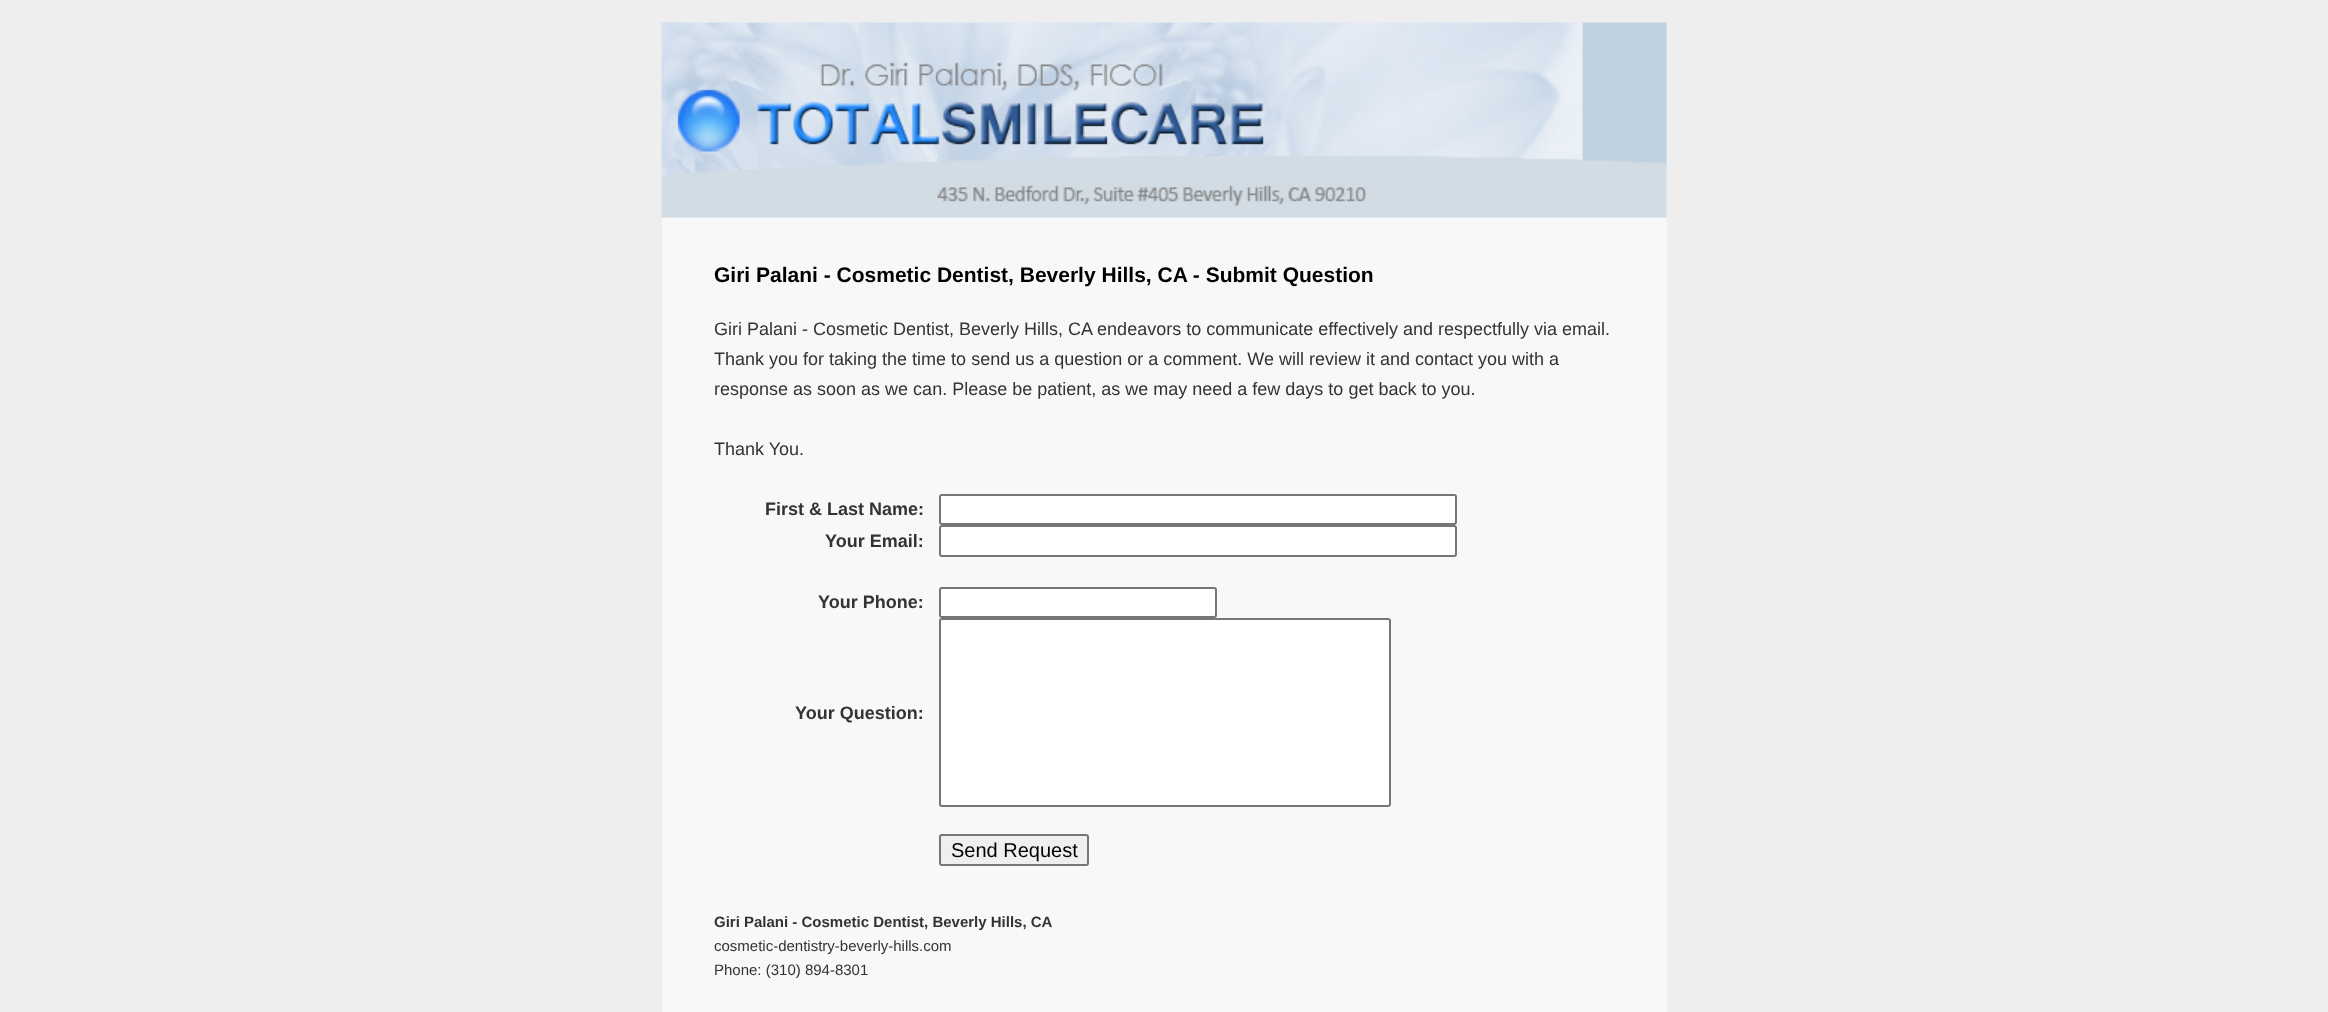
<svg xmlns="http://www.w3.org/2000/svg" width="2328" height="1012" viewBox="0 0 2328 1012">
  <rect width="100%" height="100%" fill="rgb(238,238,238)"/>
  <image x="661" y="22" width="1006" height="196" href="pic1.png"/>
  <rect x="662" y="218" width="1005" height="794" fill="rgb(248,248,248)"/>
  <text x="714" y="282" font-family="Liberation Sans" font-size="21" font-weight="bold" fill="rgb(0,0,0)">Giri Palani - Cosmetic Dentist, Beverly Hills, CA - Submit Question</text>
  <g font-family="Liberation Sans" font-size="18" fill="rgb(51,51,51)">
    <text>
      <tspan x="714" y="335">Giri Palani - Cosmetic Dentist, Beverly Hills, CA endeavors to communicate effectively and respectfully via email.</tspan>
      <tspan x="714" y="365">Thank you for taking the time to send us a question or a comment. We will review it and contact you with a</tspan>
      <tspan x="714" y="395">response as soon as we can. Please be patient, as we may need a few days to get back to you.</tspan>
    </text>
    <text x="714" y="455">Thank You.</text>
  </g>
  <text x="765" y="515" font-family="Liberation Sans" font-size="18" font-weight="bold" fill="rgb(51,51,51)">First &amp; Last Name:</text>
  <rect x="940" y="495" width="516" height="29" rx="2" fill="rgb(255,255,255)" stroke="rgb(118,118,118)" stroke-width="2"/>
  <text x="825" y="547" font-family="Liberation Sans" font-size="18" font-weight="bold" fill="rgb(51,51,51)">Your Email:</text>
  <rect x="940" y="526" width="516" height="30" rx="2" fill="rgb(255,255,255)" stroke="rgb(118,118,118)" stroke-width="2"/>
  <text x="818" y="608" font-family="Liberation Sans" font-size="18" font-weight="bold" fill="rgb(51,51,51)">Your Phone:</text>
  <rect x="940" y="588" width="276" height="29" rx="2" fill="rgb(255,255,255)" stroke="rgb(118,118,118)" stroke-width="2"/>
  <text x="795" y="719" font-family="Liberation Sans" font-size="18" font-weight="bold" fill="rgb(51,51,51)">Your Question:</text>
  <rect x="940" y="619" width="450" height="187" rx="2" fill="rgb(255,255,255)" stroke="rgb(118,118,118)" stroke-width="2"/>
  <rect x="940" y="835" width="148" height="30" rx="2" fill="rgb(239,239,239)" stroke="rgb(118,118,118)" stroke-width="2"/>
  <text x="951" y="857" font-family="Liberation Sans" font-size="20" fill="rgb(0,0,0)">Send Request</text>
  <text x="714" y="927" font-family="Liberation Sans" font-size="15" font-weight="bold" fill="rgb(51,51,51)">Giri Palani - Cosmetic Dentist, Beverly Hills, CA</text>
  <g font-family="Liberation Sans" font-size="15" fill="rgb(51,51,51)">
    <text>
      <tspan x="714" y="951">cosmetic-dentistry-beverly-hills.com</tspan>
      <tspan x="714" y="975">Phone: (310) 894-8301</tspan>
    </text>
  </g>
</svg>
